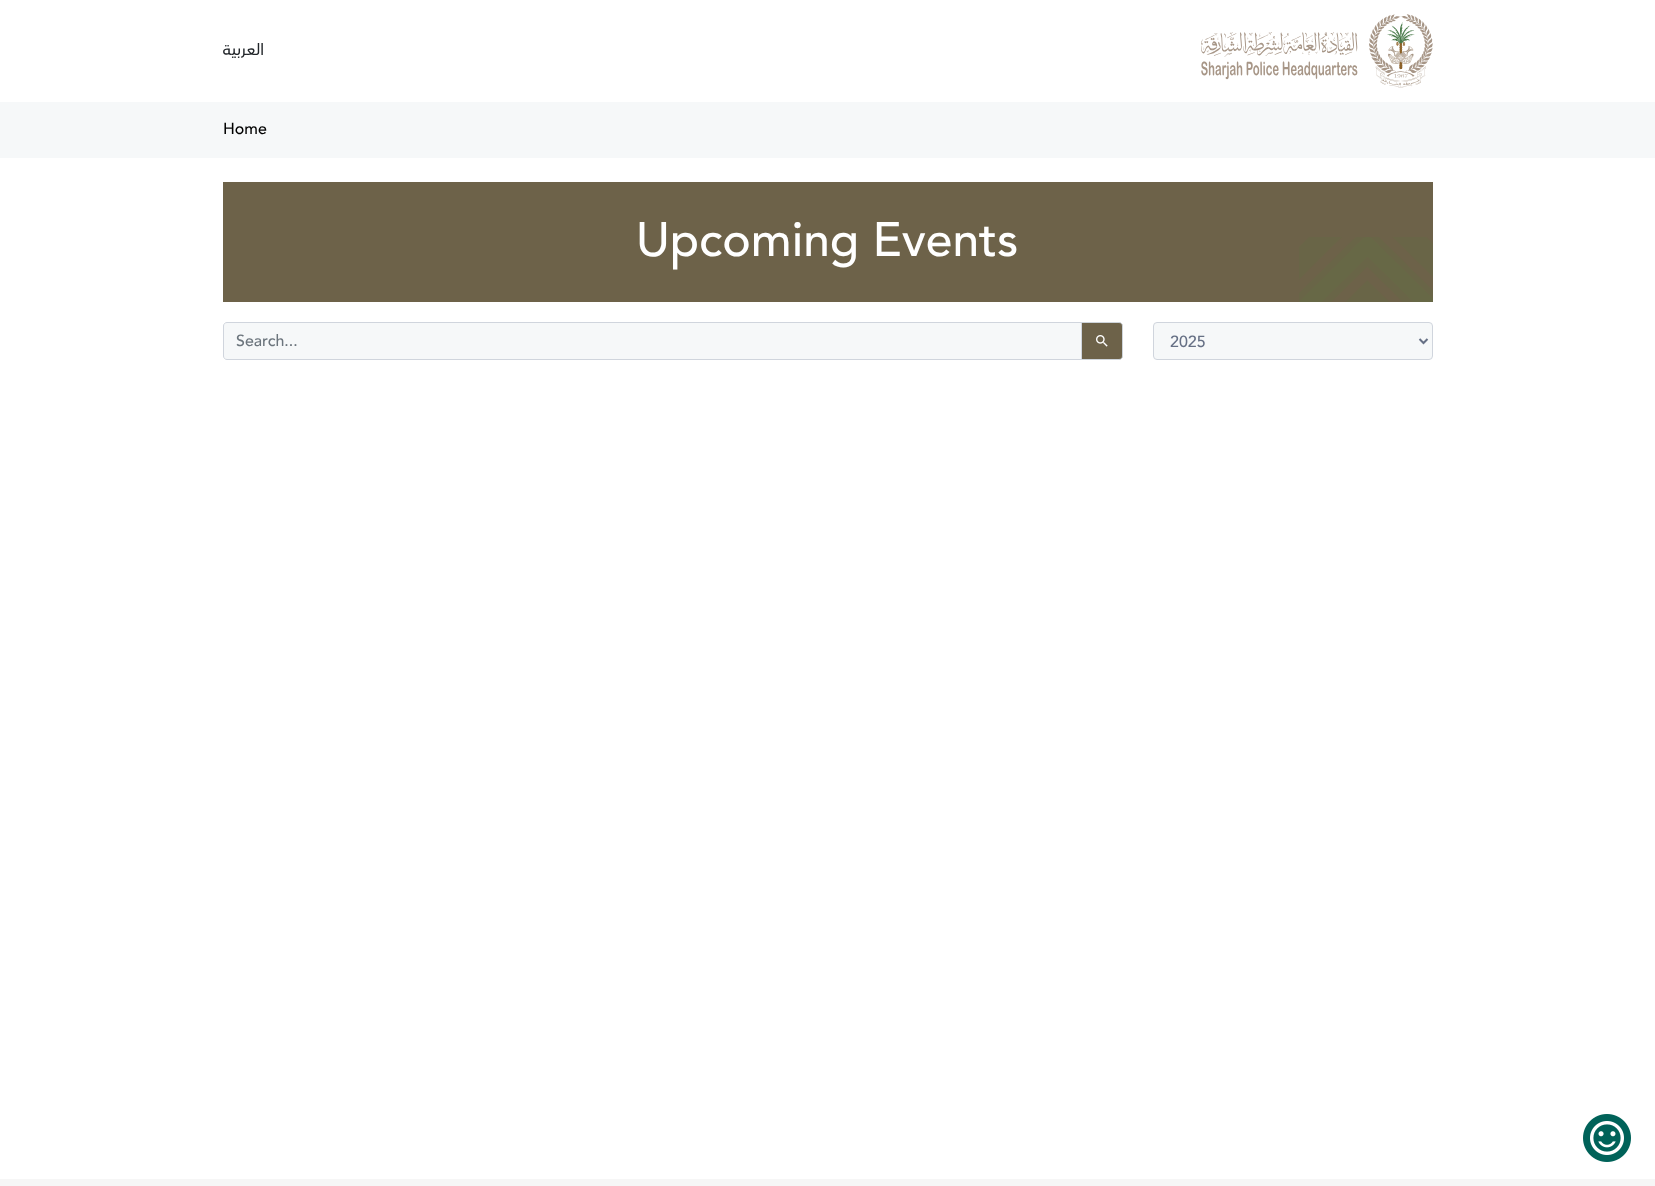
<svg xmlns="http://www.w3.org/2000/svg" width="1655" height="1186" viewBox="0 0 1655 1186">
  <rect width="100%" height="100%" fill="rgb(255,255,255)"/>
  <text x="264" y="55" font-family="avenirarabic" font-size="16" font-weight="500" direction="rtl" fill="rgb(33,37,41)">العربية</text>
  <image x="1201" y="14" width="232" height="74" href="pic1.png"/>
  <rect x="0" y="102" width="1655" height="56" fill="rgb(246,248,249)"/>
  <text x="223" y="134" font-family="avenirarabic" font-size="16" font-weight="500" fill="rgb(0,0,0)">Home</text>
  <rect x="223" y="182" width="1210" height="120" fill="rgb(109,98,73)"/>
  <text x="636" y="256" font-family="avenirarabic" font-size="48" font-weight="500" fill="rgb(255,255,255)">Upcoming Events</text>
  <image x="1299" y="237" width="134" height="65" href="pic2.png"/>
  <path d="M1081.5 322.5H1119C1121 322.5 1122.5 324 1122.5 326V356C1122.5 358 1121 359.5 1119 359.5H1081.5Z" fill="rgb(109,98,73)" stroke="rgb(206,212,218)"/>
  <path d="M227 322.5H1081.5V359.5H227C225 359.5 223.5 358 223.5 356V326C223.5 324 225 322.5 227 322.5Z" fill="rgb(246,248,249)" stroke="rgb(208,213,221)"/>
  <text x="236" y="346" font-family="avenirarabic" font-size="16" font-weight="500" fill="rgb(108,117,125)">Search...</text>
  <image x="1096" y="335" width="12" height="12" href="pic3.png"/>
  <rect x="1153.5" y="322.5" width="279" height="37" rx="3.5" fill="rgb(246,248,249)" stroke="rgb(208,213,221)"/>
  <path d="M1419.5 339L1423.5 343L1427.5 339" fill="none" stroke="rgb(102,112,133)" stroke-width="2"/>
  <text x="1170" y="347" font-family="avenirarabic" font-size="16" font-weight="500" fill="rgb(102,112,133)">2025</text>
  <image x="1583" y="1114" width="48" height="48" href="pic4.png"/>
  <rect x="0" y="1179" width="1655" height="7" fill="rgb(246,246,246)"/>
</svg>
